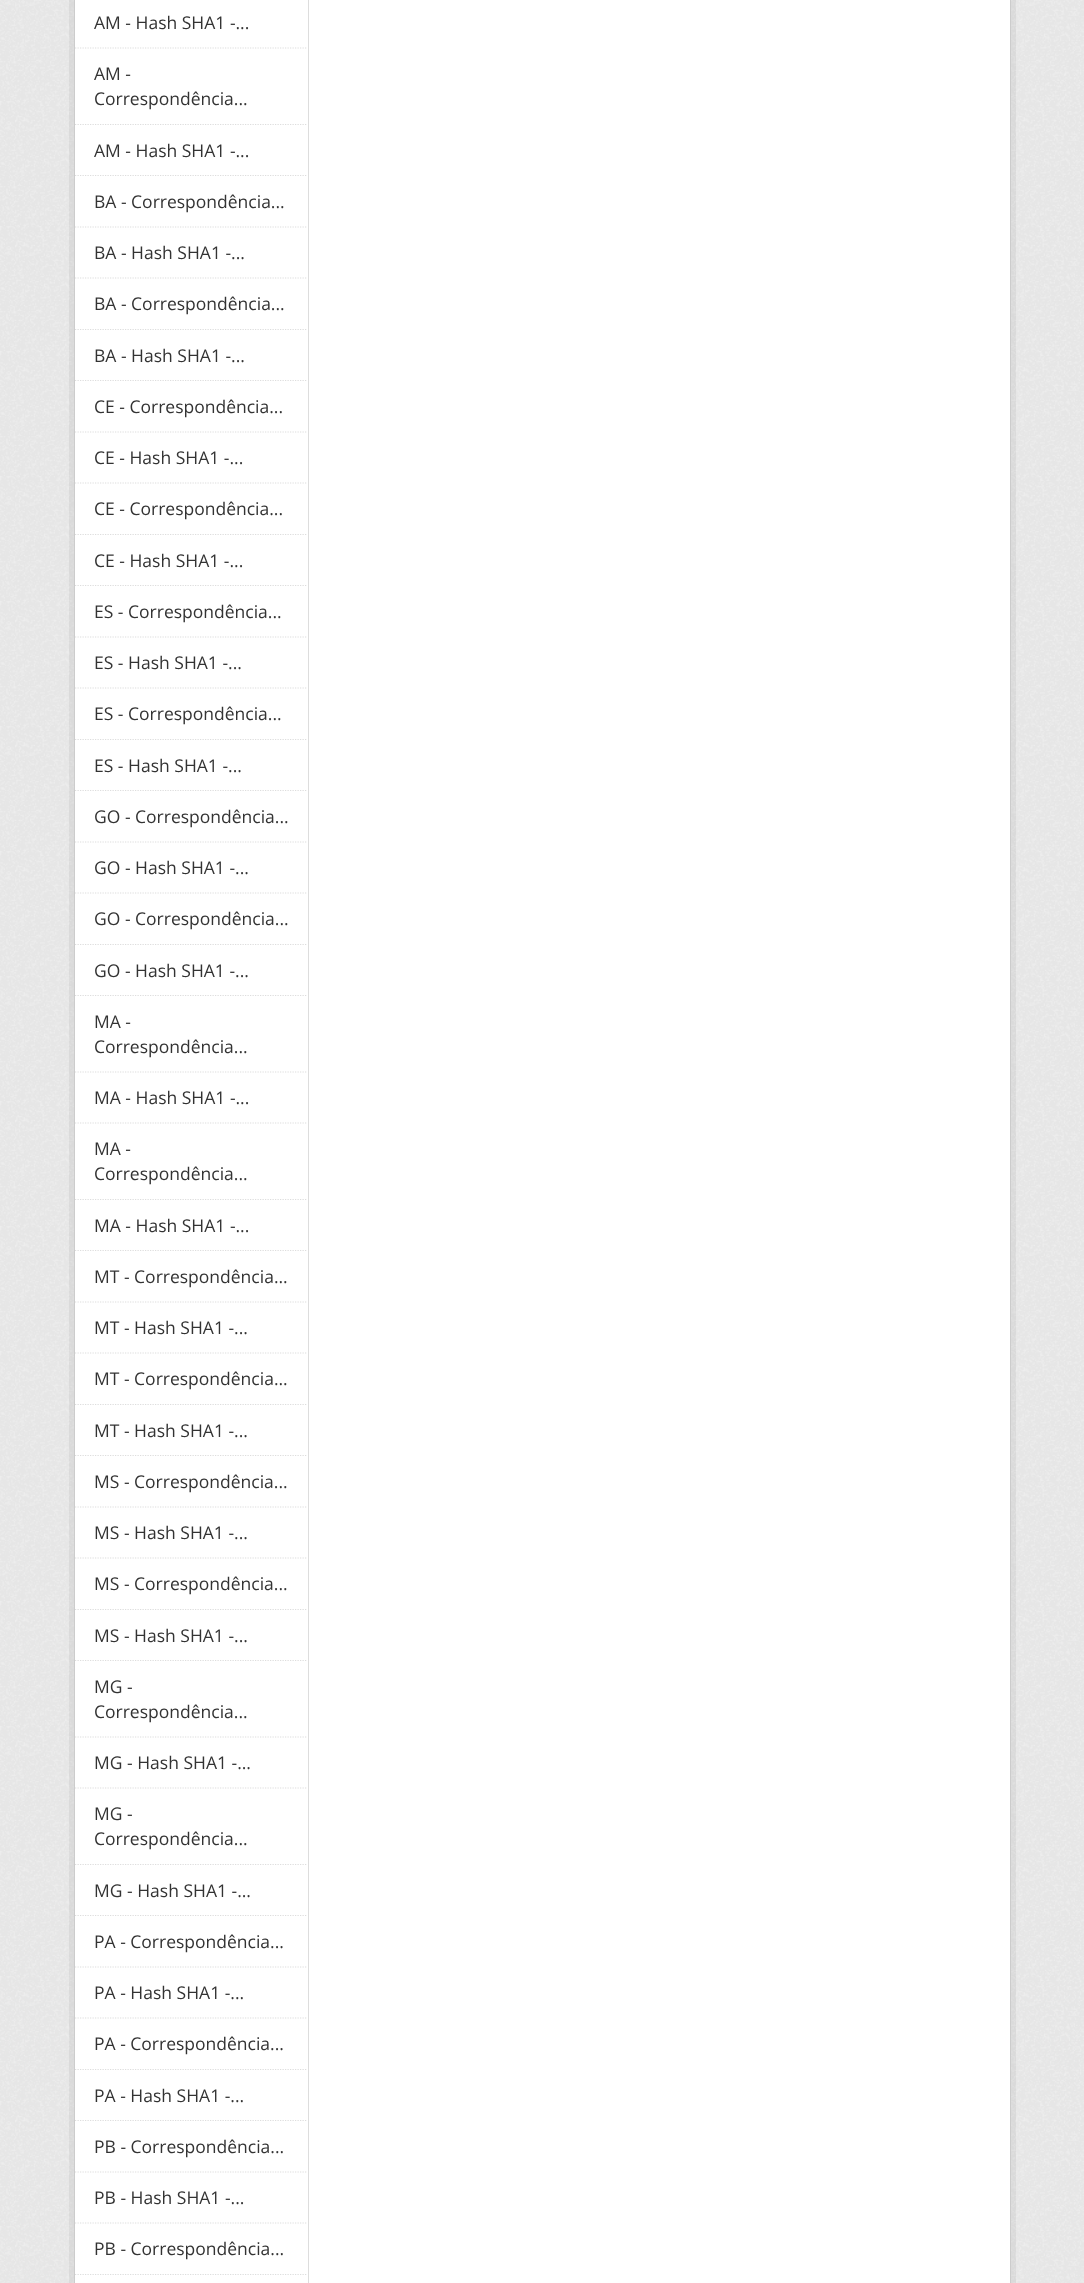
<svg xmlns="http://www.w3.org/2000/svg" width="1084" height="2283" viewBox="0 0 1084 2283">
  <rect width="100%" height="100%" fill="rgb(238,238,238)"/>
  <image x="0" y="0" width="1084" height="2283" href="pic1.png"/>
  <rect x="71.5" y="-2.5" width="942" height="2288" fill="none" stroke="rgba(0,0,0,0.05)" stroke-width="5"/>
  <rect x="74.5" y="-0.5" width="936" height="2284" fill="rgb(255,255,255)" stroke="rgb(204,204,204)"/>
  <path d="M75 48H307.5" fill="none" stroke="rgb(221,221,221)" stroke-width="1.2" stroke-dasharray="1.25 1.25"/>
  <text x="94" y="29" font-family="Open Sans" font-size="17.5" fill="rgb(51,51,51)">AM - Hash SHA1 -...</text>
  <path d="M75 124.5H307.5" fill="none" stroke="rgb(221,221,221)" stroke-width="1.2" stroke-dasharray="1.25 1.25"/>
  <g font-family="Open Sans" font-size="17.5" fill="rgb(51,51,51)">
    <text>
      <tspan x="94" y="80">AM -</tspan>
      <tspan x="94" y="105">Correspondência...</tspan>
    </text>
  </g>
  <path d="M75 175.5H307.5" fill="none" stroke="rgb(221,221,221)" stroke-width="1.2" stroke-dasharray="1.25 1.25"/>
  <text x="94" y="157" font-family="Open Sans" font-size="17.5" fill="rgb(51,51,51)">AM - Hash SHA1 -...</text>
  <path d="M75 227H307.5" fill="none" stroke="rgb(221,221,221)" stroke-width="1.2" stroke-dasharray="1.25 1.25"/>
  <text x="94" y="208" font-family="Open Sans" font-size="17.5" fill="rgb(51,51,51)">BA - Correspondência...</text>
  <path d="M75 278H307.5" fill="none" stroke="rgb(221,221,221)" stroke-width="1.2" stroke-dasharray="1.25 1.25"/>
  <text x="94" y="259" font-family="Open Sans" font-size="17.5" fill="rgb(51,51,51)">BA - Hash SHA1 -...</text>
  <path d="M75 329.5H307.5" fill="none" stroke="rgb(221,221,221)" stroke-width="1.2" stroke-dasharray="1.25 1.25"/>
  <text x="94" y="310" font-family="Open Sans" font-size="17.5" fill="rgb(51,51,51)">BA - Correspondência...</text>
  <path d="M75 380.5H307.5" fill="none" stroke="rgb(221,221,221)" stroke-width="1.2" stroke-dasharray="1.25 1.25"/>
  <text x="94" y="362" font-family="Open Sans" font-size="17.5" fill="rgb(51,51,51)">BA - Hash SHA1 -...</text>
  <path d="M75 432H307.5" fill="none" stroke="rgb(221,221,221)" stroke-width="1.2" stroke-dasharray="1.25 1.25"/>
  <text x="94" y="413" font-family="Open Sans" font-size="17.5" fill="rgb(51,51,51)">CE - Correspondência...</text>
  <path d="M75 483H307.5" fill="none" stroke="rgb(221,221,221)" stroke-width="1.2" stroke-dasharray="1.25 1.25"/>
  <text x="94" y="464" font-family="Open Sans" font-size="17.5" fill="rgb(51,51,51)">CE - Hash SHA1 -...</text>
  <path d="M75 534.5H307.5" fill="none" stroke="rgb(221,221,221)" stroke-width="1.2" stroke-dasharray="1.25 1.25"/>
  <text x="94" y="515" font-family="Open Sans" font-size="17.5" fill="rgb(51,51,51)">CE - Correspondência...</text>
  <path d="M75 585.5H307.5" fill="none" stroke="rgb(221,221,221)" stroke-width="1.2" stroke-dasharray="1.25 1.25"/>
  <text x="94" y="567" font-family="Open Sans" font-size="17.5" fill="rgb(51,51,51)">CE - Hash SHA1 -...</text>
  <path d="M75 637H307.5" fill="none" stroke="rgb(221,221,221)" stroke-width="1.2" stroke-dasharray="1.25 1.25"/>
  <text x="94" y="618" font-family="Open Sans" font-size="17.5" fill="rgb(51,51,51)">ES - Correspondência...</text>
  <path d="M75 688H307.5" fill="none" stroke="rgb(221,221,221)" stroke-width="1.2" stroke-dasharray="1.25 1.25"/>
  <text x="94" y="669" font-family="Open Sans" font-size="17.5" fill="rgb(51,51,51)">ES - Hash SHA1 -...</text>
  <path d="M75 739.5H307.5" fill="none" stroke="rgb(221,221,221)" stroke-width="1.2" stroke-dasharray="1.25 1.25"/>
  <text x="94" y="720" font-family="Open Sans" font-size="17.5" fill="rgb(51,51,51)">ES - Correspondência...</text>
  <path d="M75 790.5H307.5" fill="none" stroke="rgb(221,221,221)" stroke-width="1.2" stroke-dasharray="1.25 1.25"/>
  <text x="94" y="772" font-family="Open Sans" font-size="17.5" fill="rgb(51,51,51)">ES - Hash SHA1 -...</text>
  <path d="M75 842H307.5" fill="none" stroke="rgb(221,221,221)" stroke-width="1.2" stroke-dasharray="1.25 1.25"/>
  <text x="94" y="823" font-family="Open Sans" font-size="17.5" fill="rgb(51,51,51)">GO - Correspondência...</text>
  <path d="M75 893H307.5" fill="none" stroke="rgb(221,221,221)" stroke-width="1.2" stroke-dasharray="1.25 1.25"/>
  <text x="94" y="874" font-family="Open Sans" font-size="17.5" fill="rgb(51,51,51)">GO - Hash SHA1 -...</text>
  <path d="M75 944.5H307.5" fill="none" stroke="rgb(221,221,221)" stroke-width="1.2" stroke-dasharray="1.25 1.25"/>
  <text x="94" y="925" font-family="Open Sans" font-size="17.5" fill="rgb(51,51,51)">GO - Correspondência...</text>
  <path d="M75 995.5H307.5" fill="none" stroke="rgb(221,221,221)" stroke-width="1.2" stroke-dasharray="1.25 1.25"/>
  <text x="94" y="977" font-family="Open Sans" font-size="17.5" fill="rgb(51,51,51)">GO - Hash SHA1 -...</text>
  <path d="M75 1072H307.5" fill="none" stroke="rgb(221,221,221)" stroke-width="1.2" stroke-dasharray="1.25 1.25"/>
  <g font-family="Open Sans" font-size="17.5" fill="rgb(51,51,51)">
    <text>
      <tspan x="94" y="1028">MA -</tspan>
      <tspan x="94" y="1053">Correspondência...</tspan>
    </text>
  </g>
  <path d="M75 1123H307.5" fill="none" stroke="rgb(221,221,221)" stroke-width="1.2" stroke-dasharray="1.25 1.25"/>
  <text x="94" y="1104" font-family="Open Sans" font-size="17.5" fill="rgb(51,51,51)">MA - Hash SHA1 -...</text>
  <path d="M75 1199.5H307.5" fill="none" stroke="rgb(221,221,221)" stroke-width="1.2" stroke-dasharray="1.25 1.25"/>
  <g font-family="Open Sans" font-size="17.5" fill="rgb(51,51,51)">
    <text>
      <tspan x="94" y="1155">MA -</tspan>
      <tspan x="94" y="1180">Correspondência...</tspan>
    </text>
  </g>
  <path d="M75 1250.5H307.5" fill="none" stroke="rgb(221,221,221)" stroke-width="1.2" stroke-dasharray="1.25 1.25"/>
  <text x="94" y="1232" font-family="Open Sans" font-size="17.5" fill="rgb(51,51,51)">MA - Hash SHA1 -...</text>
  <path d="M75 1302H307.5" fill="none" stroke="rgb(221,221,221)" stroke-width="1.2" stroke-dasharray="1.25 1.25"/>
  <text x="94" y="1283" font-family="Open Sans" font-size="17.5" fill="rgb(51,51,51)">MT - Correspondência...</text>
  <path d="M75 1353H307.5" fill="none" stroke="rgb(221,221,221)" stroke-width="1.2" stroke-dasharray="1.25 1.25"/>
  <text x="94" y="1334" font-family="Open Sans" font-size="17.5" fill="rgb(51,51,51)">MT - Hash SHA1 -...</text>
  <path d="M75 1404.5H307.5" fill="none" stroke="rgb(221,221,221)" stroke-width="1.2" stroke-dasharray="1.25 1.25"/>
  <text x="94" y="1385" font-family="Open Sans" font-size="17.5" fill="rgb(51,51,51)">MT - Correspondência...</text>
  <path d="M75 1455.5H307.5" fill="none" stroke="rgb(221,221,221)" stroke-width="1.2" stroke-dasharray="1.25 1.25"/>
  <text x="94" y="1437" font-family="Open Sans" font-size="17.5" fill="rgb(51,51,51)">MT - Hash SHA1 -...</text>
  <path d="M75 1507H307.5" fill="none" stroke="rgb(221,221,221)" stroke-width="1.2" stroke-dasharray="1.25 1.25"/>
  <text x="94" y="1488" font-family="Open Sans" font-size="17.5" fill="rgb(51,51,51)">MS - Correspondência...</text>
  <path d="M75 1558H307.5" fill="none" stroke="rgb(221,221,221)" stroke-width="1.2" stroke-dasharray="1.25 1.25"/>
  <text x="94" y="1539" font-family="Open Sans" font-size="17.5" fill="rgb(51,51,51)">MS - Hash SHA1 -...</text>
  <path d="M75 1609.5H307.5" fill="none" stroke="rgb(221,221,221)" stroke-width="1.2" stroke-dasharray="1.25 1.25"/>
  <text x="94" y="1590" font-family="Open Sans" font-size="17.5" fill="rgb(51,51,51)">MS - Correspondência...</text>
  <path d="M75 1660.5H307.5" fill="none" stroke="rgb(221,221,221)" stroke-width="1.2" stroke-dasharray="1.25 1.25"/>
  <text x="94" y="1642" font-family="Open Sans" font-size="17.5" fill="rgb(51,51,51)">MS - Hash SHA1 -...</text>
  <path d="M75 1737H307.5" fill="none" stroke="rgb(221,221,221)" stroke-width="1.2" stroke-dasharray="1.25 1.25"/>
  <g font-family="Open Sans" font-size="17.5" fill="rgb(51,51,51)">
    <text>
      <tspan x="94" y="1693">MG -</tspan>
      <tspan x="94" y="1718">Correspondência...</tspan>
    </text>
  </g>
  <path d="M75 1788H307.5" fill="none" stroke="rgb(221,221,221)" stroke-width="1.2" stroke-dasharray="1.25 1.25"/>
  <text x="94" y="1769" font-family="Open Sans" font-size="17.5" fill="rgb(51,51,51)">MG - Hash SHA1 -...</text>
  <path d="M75 1864.5H307.5" fill="none" stroke="rgb(221,221,221)" stroke-width="1.2" stroke-dasharray="1.25 1.25"/>
  <g font-family="Open Sans" font-size="17.5" fill="rgb(51,51,51)">
    <text>
      <tspan x="94" y="1820">MG -</tspan>
      <tspan x="94" y="1845">Correspondência...</tspan>
    </text>
  </g>
  <path d="M75 1915.5H307.5" fill="none" stroke="rgb(221,221,221)" stroke-width="1.2" stroke-dasharray="1.25 1.25"/>
  <text x="94" y="1897" font-family="Open Sans" font-size="17.5" fill="rgb(51,51,51)">MG - Hash SHA1 -...</text>
  <path d="M75 1967H307.5" fill="none" stroke="rgb(221,221,221)" stroke-width="1.2" stroke-dasharray="1.25 1.25"/>
  <text x="94" y="1948" font-family="Open Sans" font-size="17.5" fill="rgb(51,51,51)">PA - Correspondência...</text>
  <path d="M75 2018H307.5" fill="none" stroke="rgb(221,221,221)" stroke-width="1.2" stroke-dasharray="1.25 1.25"/>
  <text x="94" y="1999" font-family="Open Sans" font-size="17.5" fill="rgb(51,51,51)">PA - Hash SHA1 -...</text>
  <path d="M75 2069.5H307.5" fill="none" stroke="rgb(221,221,221)" stroke-width="1.2" stroke-dasharray="1.25 1.25"/>
  <text x="94" y="2050" font-family="Open Sans" font-size="17.5" fill="rgb(51,51,51)">PA - Correspondência...</text>
  <path d="M75 2120.5H307.5" fill="none" stroke="rgb(221,221,221)" stroke-width="1.2" stroke-dasharray="1.25 1.25"/>
  <text x="94" y="2102" font-family="Open Sans" font-size="17.5" fill="rgb(51,51,51)">PA - Hash SHA1 -...</text>
  <path d="M75 2172H307.5" fill="none" stroke="rgb(221,221,221)" stroke-width="1.2" stroke-dasharray="1.25 1.25"/>
  <text x="94" y="2153" font-family="Open Sans" font-size="17.5" fill="rgb(51,51,51)">PB - Correspondência...</text>
  <path d="M75 2223H307.5" fill="none" stroke="rgb(221,221,221)" stroke-width="1.2" stroke-dasharray="1.25 1.25"/>
  <text x="94" y="2204" font-family="Open Sans" font-size="17.5" fill="rgb(51,51,51)">PB - Hash SHA1 -...</text>
  <path d="M75 2274.5H307.5" fill="none" stroke="rgb(221,221,221)" stroke-width="1.2" stroke-dasharray="1.25 1.25"/>
  <text x="94" y="2255" font-family="Open Sans" font-size="17.5" fill="rgb(51,51,51)">PB - Correspondência...</text>
  <rect x="308" y="0" width="1" height="2283" fill="rgb(221,221,221)"/>
</svg>
